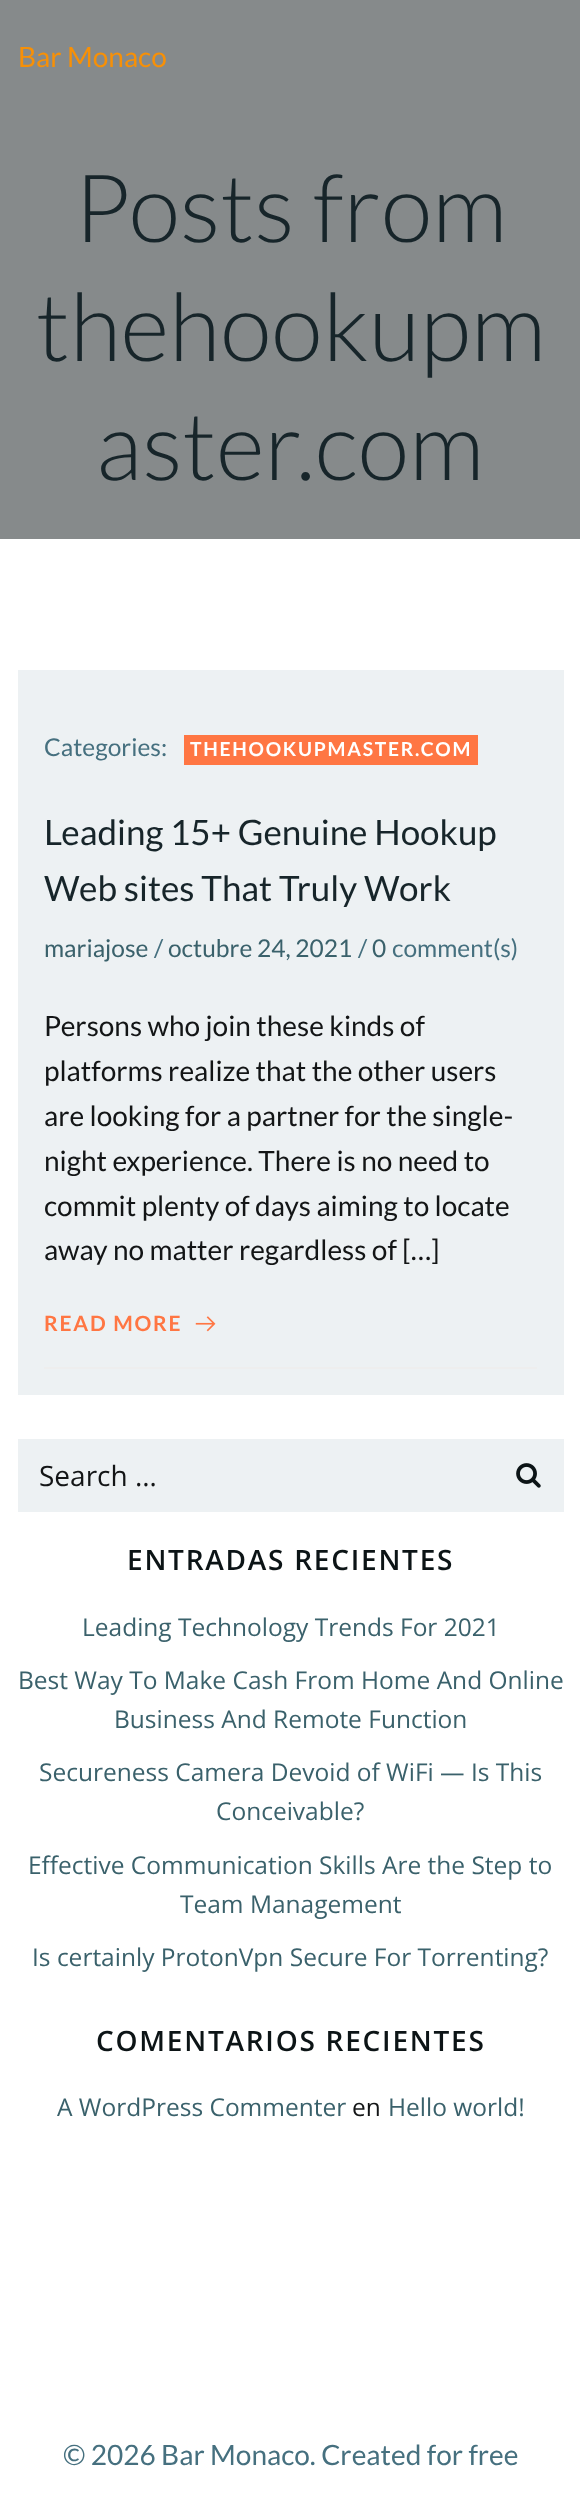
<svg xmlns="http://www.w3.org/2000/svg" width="580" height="2504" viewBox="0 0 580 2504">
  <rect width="100%" height="100%" fill="rgb(255,255,255)"/>
  <rect x="0" y="0" width="580" height="539" fill="rgb(134,138,139)"/>
  <text x="18" y="67" font-family="Lato" font-size="28" fill="rgb(247,144,7)">Bar Monaco</text>
  <g font-family="Lato" font-size="94.5" font-weight="300" fill="rgb(23,37,42)">
    <text x="74" y="242">Posts from</text>
    <text x="36" y="361">thehookupm</text>
    <text x="96" y="480">aster.com</text>
  </g>
  <rect x="18" y="670" width="546" height="725" fill="rgb(237,241,243)"/>
  <rect x="44" y="1367" width="493" height="2" fill="rgb(238,238,238)"/>
  <text x="44" y="756" font-family="Lato" font-size="24.5" fill="rgb(70,112,127)">Categories:</text>
  <rect x="184" y="735" width="294" height="30" fill="rgb(255,118,67)"/>
  <text x="190" y="756" font-family="Lato" font-size="19.25" font-weight="bold" letter-spacing="1.75" fill="rgb(255,255,255)">THEHOOKUPMASTER.COM</text>
  <g font-family="Lato" font-size="35" fill="rgb(23,37,42)">
    <text>
      <tspan x="44" y="845">Leading 15+ Genuine Hookup</tspan>
      <tspan x="44" y="901">Web sites That Truly Work</tspan>
    </text>
  </g>
  <text x="44" y="957" font-family="Lato" font-size="24.5" fill="rgb(58,97,107)">mariajose</text>
  <text x="154" y="957" font-family="Lato" font-size="24.5" fill="rgb(70,112,127)">/</text>
  <text x="168" y="957" font-family="Lato" font-size="24.5" fill="rgb(58,97,107)">octubre 24, 2021</text>
  <text x="358" y="957" font-family="Lato" font-size="24.5" fill="rgb(70,112,127)">/</text>
  <text x="372" y="957" font-family="Lato" font-size="24.5" fill="rgb(58,97,107)">0</text>
  <text x="392" y="957" font-family="Lato" font-size="24.5" fill="rgb(70,112,127)">comment(s)</text>
  <g font-family="Lato" font-size="28" fill="rgb(19,21,22)">
    <text>
      <tspan x="44" y="1036">Persons who join these kinds of</tspan>
      <tspan x="44" y="1081">platforms realize that the other users</tspan>
      <tspan x="44" y="1126">are looking for a partner for the single-</tspan>
      <tspan x="44" y="1171">night experience. There is no need to</tspan>
      <tspan x="44" y="1216">commit plenty of days aiming to locate</tspan>
      <tspan x="44" y="1260">away no matter regardless of […]</tspan>
    </text>
  </g>
  <text x="44" y="1331" font-family="Lato" font-size="21" font-weight="bold" letter-spacing="1.75" fill="rgb(255,118,67)">READ MORE</text>
  <image x="195" y="1316" width="21" height="16" href="pic1.png"/>
  <rect x="18" y="1439" width="546" height="73" fill="rgb(237,241,243)"/>
  <text x="39" y="1486" font-family="Open Sans" font-size="28" fill="rgb(19,21,22)">Search …</text>
  <image x="516" y="1463" width="25" height="25" href="pic2.png"/>
  <text x="127" y="1570" font-family="Open Sans" font-size="28" font-weight="600" letter-spacing="1.75" fill="rgb(12,20,22)">ENTRADAS RECIENTES</text>
  <g font-family="Open Sans" font-size="24.5" fill="rgb(58,97,107)">
    <text x="82" y="1636">Leading Technology Trends For 2021</text>
    <text x="18" y="1689">Best Way To Make Cash From Home And Online</text>
    <text x="114" y="1728">Business And Remote Function</text>
    <text x="39" y="1781">Secureness Camera Devoid of WiFi — Is This</text>
    <text x="216" y="1820">Conceivable?</text>
    <text x="28" y="1874">Effective Communication Skills Are the Step to</text>
    <text x="180" y="1913">Team Management</text>
    <text x="32" y="1966">Is certainly ProtonVpn Secure For Torrenting?</text>
  </g>
  <text x="96" y="2051" font-family="Open Sans" font-size="28" font-weight="600" letter-spacing="1.75" fill="rgb(12,20,22)">COMENTARIOS RECIENTES</text>
  <text x="57" y="2116" font-family="Open Sans" font-size="24.5" fill="rgb(58,97,107)">A WordPress Commenter</text>
  <text x="352" y="2116" font-family="Open Sans" font-size="24.5" fill="rgb(19,21,22)">en</text>
  <text x="388" y="2116" font-family="Open Sans" font-size="24.5" fill="rgb(58,97,107)">Hello world!</text>
  <text x="63" y="2465" font-family="Lato" font-size="28" fill="rgb(70,112,127)">© 2026 Bar Monaco. Created for free</text>
</svg>
